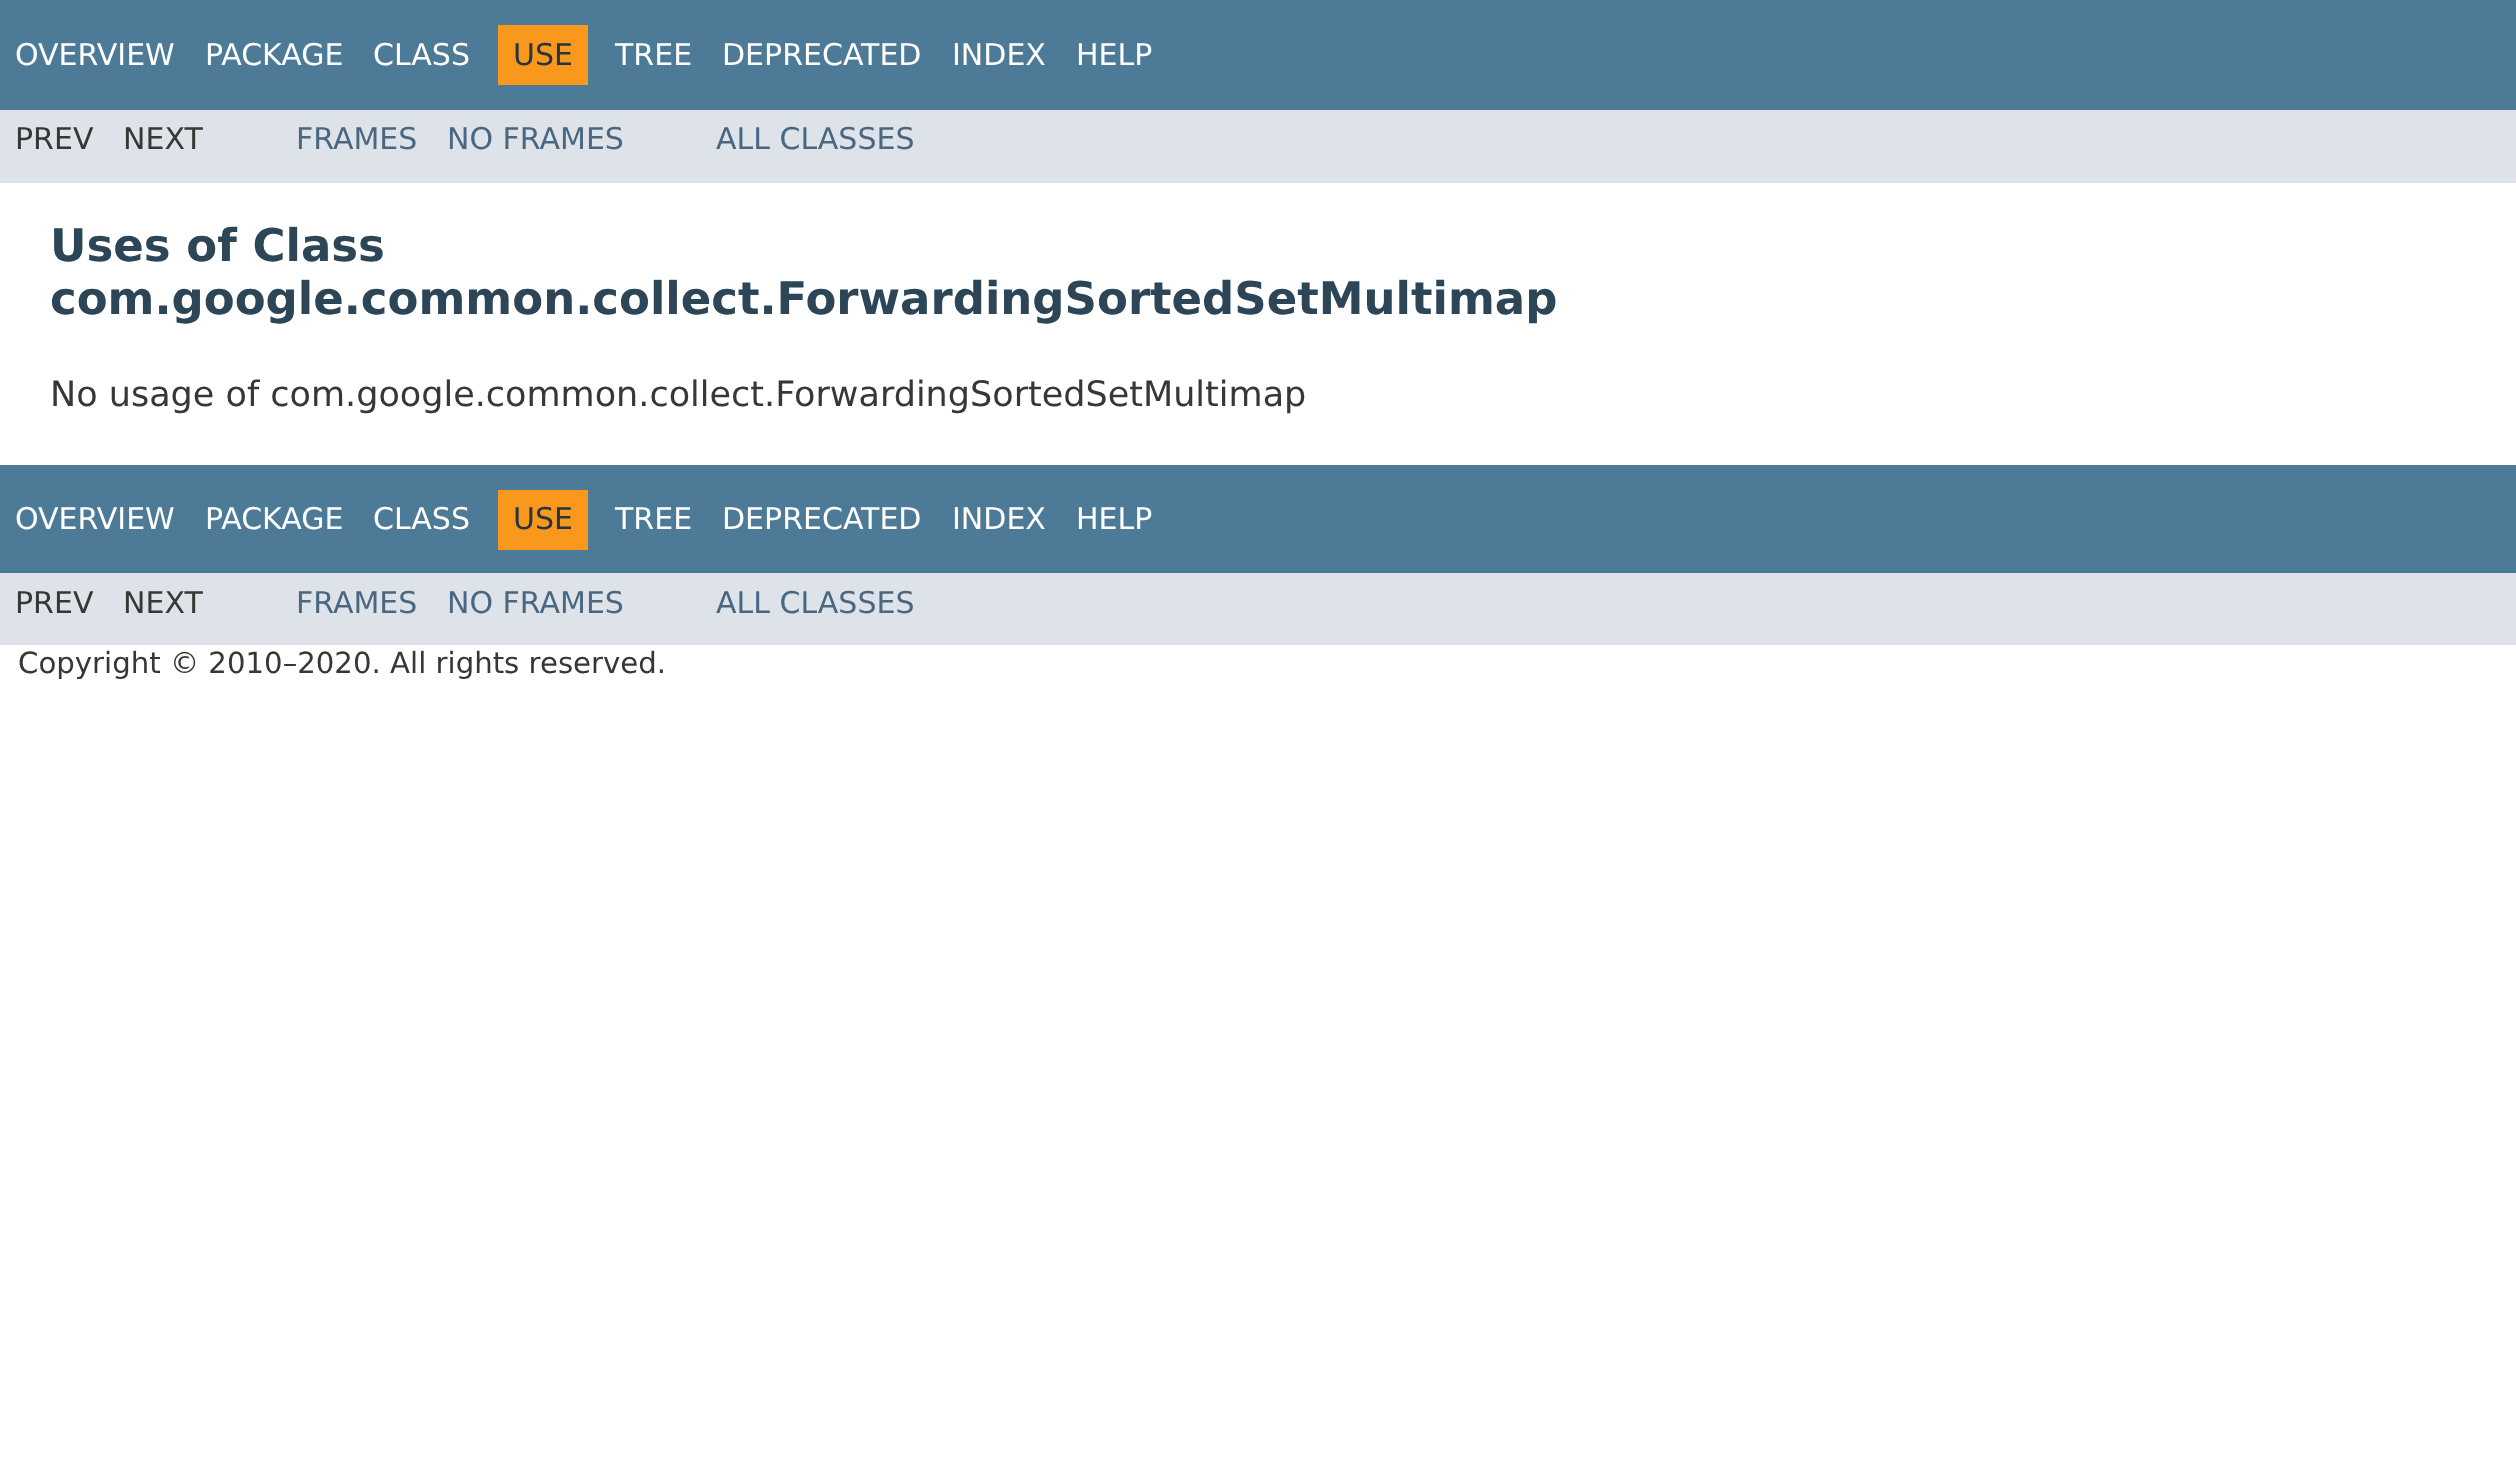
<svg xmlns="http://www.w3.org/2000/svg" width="2516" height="1464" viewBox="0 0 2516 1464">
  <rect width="100%" height="100%" fill="rgb(255,255,255)"/>
  <rect x="0" y="0" width="2516" height="110" fill="rgb(77,122,151)"/>
  <g font-family="DejaVu Sans" font-size="30" fill="rgb(255,255,255)">
    <text x="15" y="65">OVERVIEW</text>
    <text x="205" y="65">PACKAGE</text>
    <text x="373" y="65">CLASS</text>
  </g>
  <rect x="498" y="25" width="90" height="60" fill="rgb(248,152,29)"/>
  <text x="513" y="65" font-family="DejaVu Sans" font-size="30" fill="rgb(37,52,65)">USE</text>
  <g font-family="DejaVu Sans" font-size="30" fill="rgb(255,255,255)">
    <text x="615" y="65">TREE</text>
    <text x="722" y="65">DEPRECATED</text>
    <text x="952" y="65">INDEX</text>
    <text x="1076" y="65">HELP</text>
  </g>
  <rect x="0" y="110" width="2516" height="73" fill="rgb(222,227,233)"/>
  <g font-family="DejaVu Sans" font-size="30" fill="rgb(53,56,51)">
    <text x="15" y="149">PREV</text>
    <text x="123" y="149">NEXT</text>
  </g>
  <g font-family="DejaVu Sans" font-size="30" fill="rgb(74,103,130)">
    <text x="296" y="149">FRAMES</text>
    <text x="447" y="149">NO FRAMES</text>
    <text x="716" y="149">ALL CLASSES</text>
  </g>
  <g font-family="DejaVu Sans" font-size="45" font-weight="bold" fill="rgb(44,69,87)">
    <text>
      <tspan x="50" y="261">Uses of Class</tspan>
      <tspan x="50" y="314">com.google.common.collect.ForwardingSortedSetMultimap</tspan>
    </text>
  </g>
  <text x="50" y="406" font-family="DejaVu Sans" font-size="35" fill="rgb(53,56,51)">No usage of com.google.common.collect.ForwardingSortedSetMultimap</text>
  <rect x="0" y="465" width="2516" height="108" fill="rgb(77,122,151)"/>
  <g font-family="DejaVu Sans" font-size="30" fill="rgb(255,255,255)">
    <text x="15" y="529">OVERVIEW</text>
    <text x="205" y="529">PACKAGE</text>
    <text x="373" y="529">CLASS</text>
  </g>
  <rect x="498" y="490" width="90" height="60" fill="rgb(248,152,29)"/>
  <text x="513" y="529" font-family="DejaVu Sans" font-size="30" fill="rgb(37,52,65)">USE</text>
  <g font-family="DejaVu Sans" font-size="30" fill="rgb(255,255,255)">
    <text x="615" y="529">TREE</text>
    <text x="722" y="529">DEPRECATED</text>
    <text x="952" y="529">INDEX</text>
    <text x="1076" y="529">HELP</text>
  </g>
  <rect x="0" y="573" width="2516" height="72" fill="rgb(222,227,233)"/>
  <g font-family="DejaVu Sans" font-size="30" fill="rgb(53,56,51)">
    <text x="15" y="613">PREV</text>
    <text x="123" y="613">NEXT</text>
  </g>
  <g font-family="DejaVu Sans" font-size="30" fill="rgb(74,103,130)">
    <text x="296" y="613">FRAMES</text>
    <text x="447" y="613">NO FRAMES</text>
    <text x="716" y="613">ALL CLASSES</text>
  </g>
  <text x="18" y="673" font-family="DejaVu Sans" font-size="29.2" fill="rgb(53,56,51)">Copyright © 2010–2020. All rights reserved.</text>
</svg>
